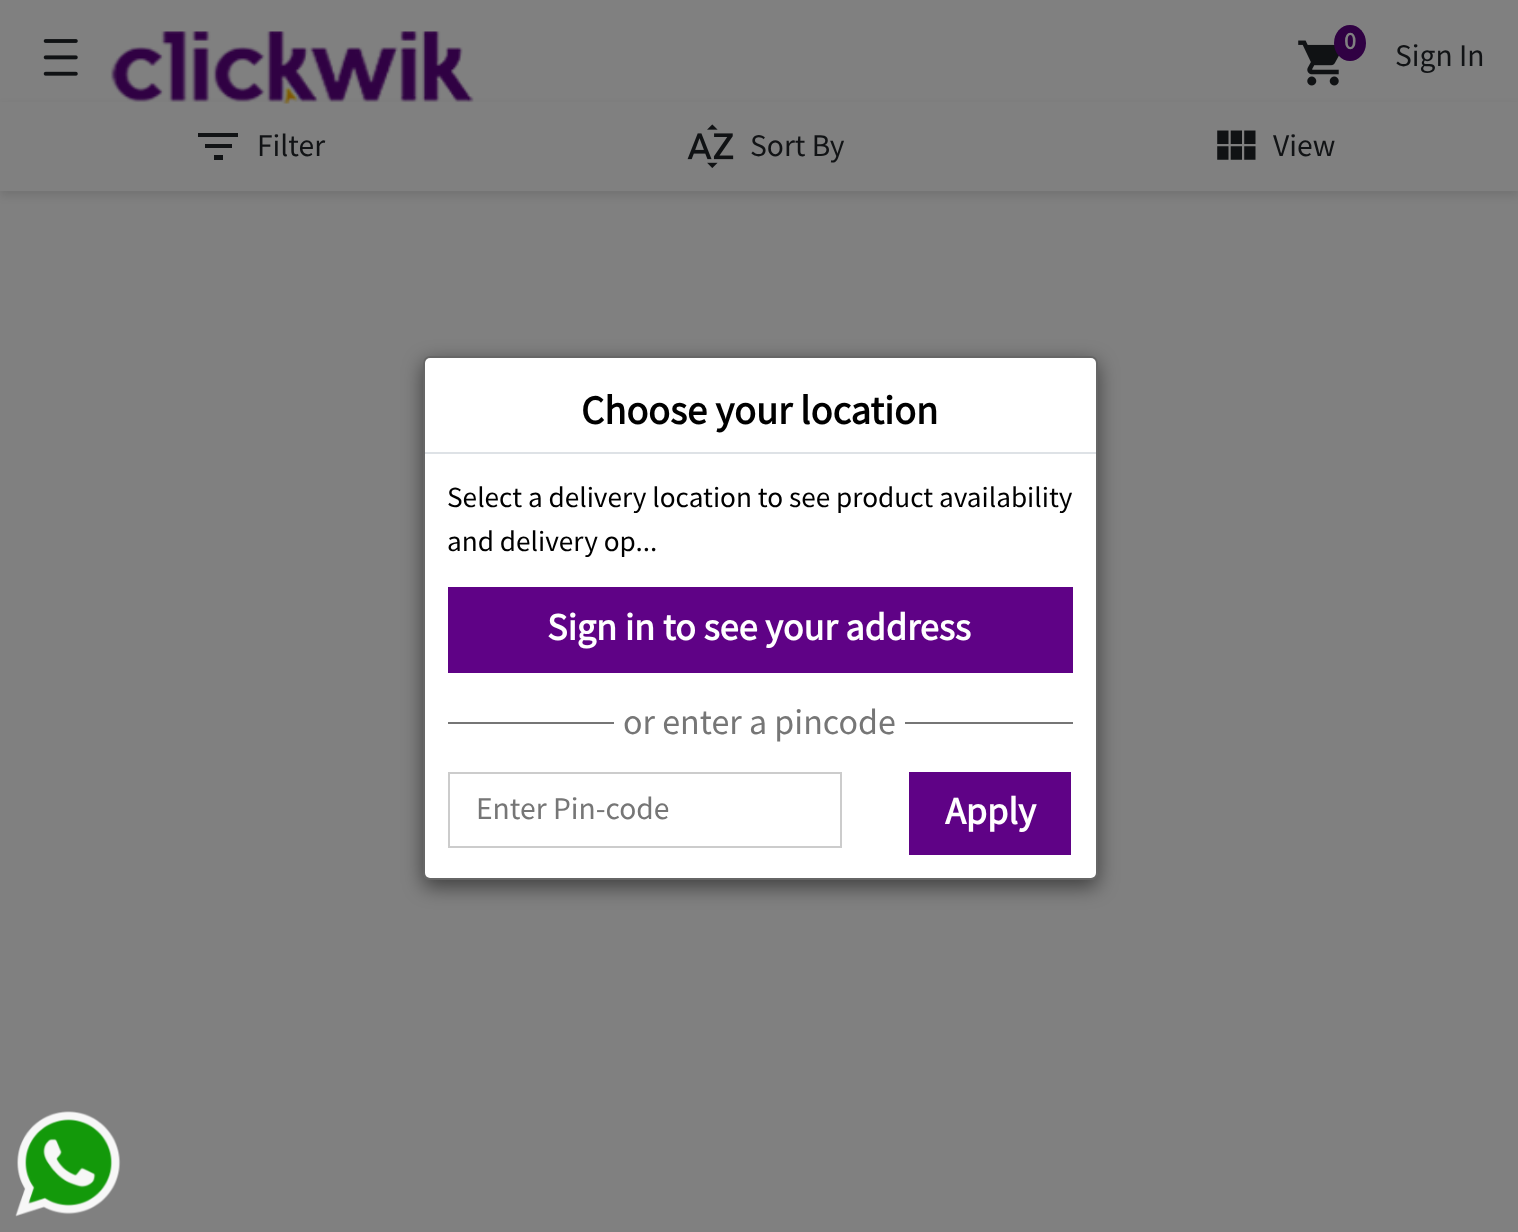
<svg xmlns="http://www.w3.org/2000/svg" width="1518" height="1232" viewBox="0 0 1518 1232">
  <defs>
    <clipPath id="clip1"><path d="M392 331H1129V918H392ZM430 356H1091C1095 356 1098 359 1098 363V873C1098 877 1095 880 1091 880H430C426 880 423 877 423 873V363C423 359 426 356 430 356Z" clip-rule="evenodd"/></clipPath>
  </defs>
  <rect width="100%" height="100%" fill="rgb(128,128,128)"/>
  <image x="43" y="39" width="35" height="37" href="pic1.png"/>
  <rect x="0" y="106" width="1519" height="90" fill="rgba(0,0,0,0.1)" filter="blur(4.5px)"/>
  <rect x="0" y="102" width="1518" height="89" fill="rgb(128,128,128)"/>
  <image x="110" y="31" width="364" height="73" href="pic2.png"/>
  <image x="1298" y="40" width="41" height="46" href="pic3.png"/>
  <ellipse cx="1350" cy="43" rx="16" ry="18" fill="rgb(48,1,67)"/>
  <text x="1344" y="49" font-family="Source Sans Pro" font-size="24" font-weight="bold" fill="rgb(128,128,128)">0</text>
  <text x="1395" y="66" font-family="Source Sans Pro" font-size="31.5" fill="rgb(17,19,21)">Sign In</text>
  <path d="M205 148V144H232V148ZM198 133H238V137H198ZM214 160V155H223V160Z" fill="rgb(17,19,21)"/>
  <text x="257" y="156" font-family="Source Sans Pro" font-size="31.5" fill="rgb(17,19,21)">Filter</text>
  <image x="687" y="124" width="47" height="44" href="pic4.png"/>
  <text x="750" y="156" font-family="Source Sans Pro" font-size="31.5" fill="rgb(17,19,21)">Sort By</text>
  <image x="1217" y="130" width="39" height="30" href="pic5.png"/>
  <text x="1273" y="156" font-family="Source Sans Pro" font-size="31.5" fill="rgb(17,19,21)">View</text>
  <g clip-path="url(#clip1)">
    <rect x="423" y="362" width="675" height="525" rx="7" fill="rgba(0,0,0,0.5)" filter="blur(10px)"/>
  </g>
  <rect x="425" y="358" width="671" height="520" rx="5" fill="rgb(255,255,255)"/>
  <rect x="424" y="357" width="673" height="522" rx="6" fill="none" stroke="rgba(0,0,0,0.2)" stroke-width="2"/>
  <rect x="425" y="452" width="671" height="2" fill="rgb(222,226,230)"/>
  <text x="581" y="424" font-family="Source Sans Pro" font-size="40.5" font-weight="bold" fill="rgb(0,0,0)">Choose your location</text>
  <g font-family="Source Sans Pro" font-size="29.25" fill="rgb(0,0,0)">
    <text>
      <tspan x="447" y="507">Select a delivery location to see product availability</tspan>
      <tspan x="447" y="551">and delivery op...</tspan>
    </text>
  </g>
  <rect x="448" y="587" width="625" height="86" fill="rgb(95,2,134)"/>
  <text x="547" y="640" font-family="Source Sans Pro" font-size="38.25" font-weight="bold" fill="rgb(255,255,255)">Sign in to see your address</text>
  <rect x="448" y="722" width="166" height="2" fill="rgb(118,118,118)"/>
  <text x="623" y="734" font-family="Source Sans Pro" font-size="36" fill="rgb(118,118,118)">or enter a pincode</text>
  <rect x="905" y="722" width="168" height="2" fill="rgb(118,118,118)"/>
  <rect x="449" y="773" width="392" height="74" fill="none" stroke="rgb(204,204,204)" stroke-width="2"/>
  <text x="476" y="819" font-family="Source Sans Pro" font-size="31.5" fill="rgb(118,118,118)">Enter Pin-code</text>
  <rect x="909" y="772" width="162" height="83" fill="rgb(95,2,134)"/>
  <text x="945" y="824" font-family="Source Sans Pro" font-size="38.25" font-weight="bold" fill="rgb(255,255,255)">Apply</text>
  <image x="15" y="1111" width="106" height="106" href="pic6.png"/>
</svg>
